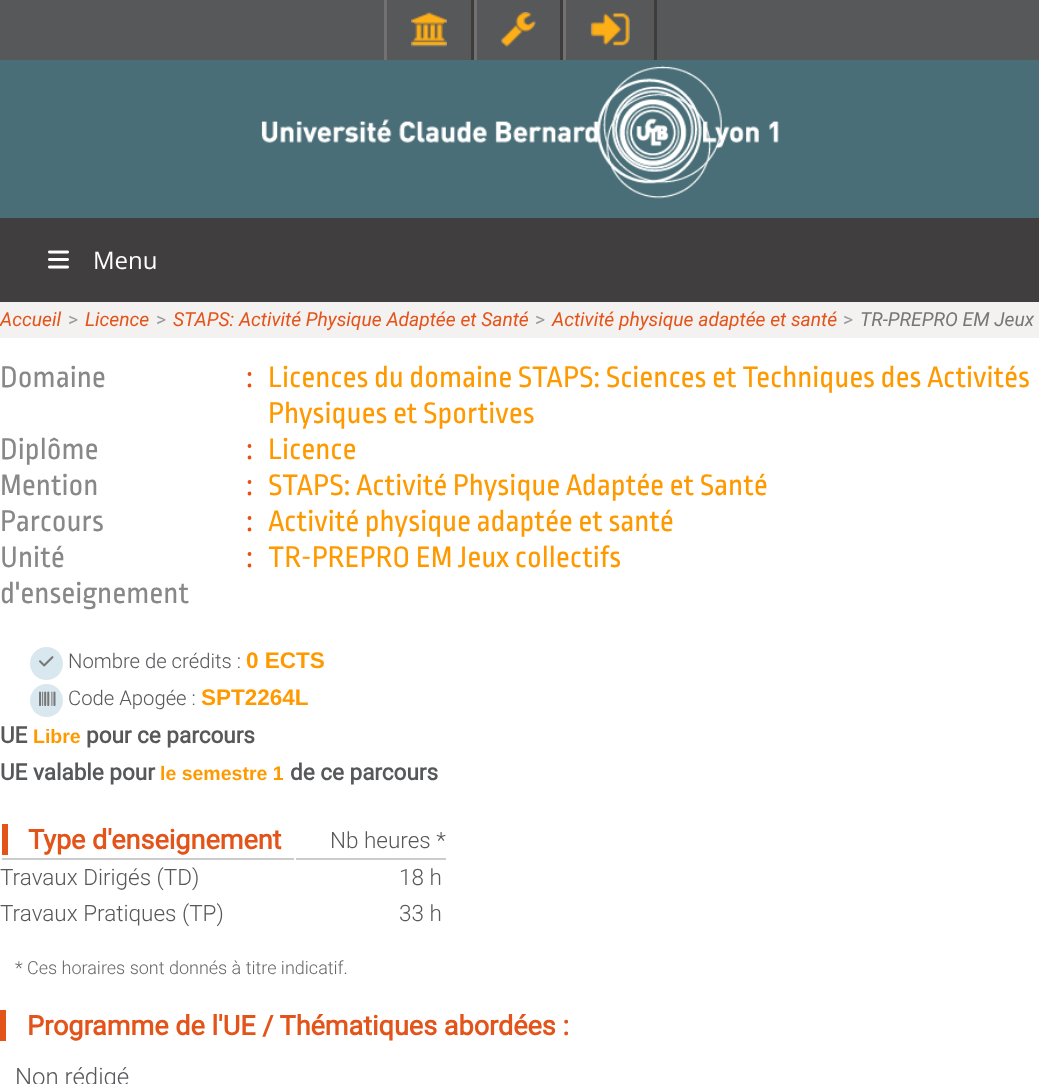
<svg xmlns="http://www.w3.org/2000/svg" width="1039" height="1084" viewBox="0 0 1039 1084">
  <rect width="100%" height="100%" fill="rgb(255,255,255)"/>
  <rect x="0" y="0" width="1039" height="60" fill="rgb(87,88,90)"/>
  <rect x="471" y="0" width="3" height="60" fill="rgb(62,61,59)"/>
  <rect x="384" y="0" width="3" height="60" fill="rgb(114,112,113)"/>
  <image x="411" y="12" width="36" height="35" href="pic1.png"/>
  <rect x="560" y="0" width="3" height="60" fill="rgb(62,61,59)"/>
  <rect x="474" y="0" width="3" height="60" fill="rgb(114,112,113)"/>
  <image x="501" y="12" width="35" height="35" href="pic2.png"/>
  <rect x="654" y="0" width="3" height="60" fill="rgb(62,61,59)"/>
  <rect x="563" y="0" width="3" height="60" fill="rgb(114,112,113)"/>
  <image x="590" y="13" width="40" height="33" href="pic3.png"/>
  <rect x="0" y="60" width="1039" height="158" fill="rgb(73,110,119)"/>
  <image x="261" y="65" width="518" height="134" href="pic4.png"/>
  <rect x="0" y="218" width="1039" height="84" fill="rgb(64,62,63)"/>
  <image x="48" y="250" width="21" height="19" href="pic5.png"/>
  <text x="93" y="269" font-family="Open Sans" font-size="24" fill="rgb(255,255,255)">Menu</text>
  <rect x="0" y="302" width="1039" height="36" fill="rgb(244,241,241)"/>
  <text x="0" y="326" font-family="Roboto" font-size="19.25" font-style="italic" fill="rgb(227,84,26)">Accueil</text>
  <text x="68" y="326" font-family="Roboto" font-size="19.25" fill="rgb(153,153,153)">&gt;</text>
  <text x="85" y="326" font-family="Roboto" font-size="19.25" font-style="italic" fill="rgb(227,84,26)">Licence</text>
  <text x="156" y="326" font-family="Roboto" font-size="19.25" fill="rgb(153,153,153)">&gt;</text>
  <text x="173" y="326" font-family="Roboto" font-size="19.25" font-style="italic" fill="rgb(227,84,26)">STAPS: Activité Physique Adaptée et Santé</text>
  <text x="535" y="326" font-family="Roboto" font-size="19.25" fill="rgb(153,153,153)">&gt;</text>
  <text x="552" y="326" font-family="Roboto" font-size="19.25" font-style="italic" fill="rgb(227,84,26)">Activité physique adaptée et santé</text>
  <text x="843" y="326" font-family="Roboto" font-size="19.25" fill="rgb(153,153,153)">&gt;</text>
  <text x="860" y="326" font-family="Roboto" font-size="19.25" font-style="italic" fill="rgb(119,119,119)">TR-PREPRO EM Jeux</text>
  <text x="0" y="387" font-family="Ropa Sans" font-size="31.2" fill="rgb(136,136,136)">Domaine</text>
  <text x="246" y="387" font-family="Ropa Sans" font-size="31.2" fill="rgb(233,79,17)">:</text>
  <g font-family="Ropa Sans" font-size="31.2" fill="rgb(254,153,0)">
    <text>
      <tspan x="268" y="387">Licences du domaine STAPS: Sciences et Techniques des Activités</tspan>
      <tspan x="268" y="423">Physiques et Sportives</tspan>
    </text>
  </g>
  <text x="0" y="459" font-family="Ropa Sans" font-size="31.2" fill="rgb(136,136,136)">Diplôme</text>
  <text x="246" y="459" font-family="Ropa Sans" font-size="31.2" fill="rgb(233,79,17)">:</text>
  <text x="268" y="459" font-family="Ropa Sans" font-size="31.2" fill="rgb(254,153,0)">Licence</text>
  <text x="0" y="495" font-family="Ropa Sans" font-size="31.2" fill="rgb(136,136,136)">Mention</text>
  <text x="246" y="495" font-family="Ropa Sans" font-size="31.2" fill="rgb(233,79,17)">:</text>
  <text x="268" y="495" font-family="Ropa Sans" font-size="31.2" fill="rgb(254,153,0)">STAPS: Activité Physique Adaptée et Santé</text>
  <text x="0" y="531" font-family="Ropa Sans" font-size="31.2" fill="rgb(136,136,136)">Parcours</text>
  <text x="246" y="531" font-family="Ropa Sans" font-size="31.2" fill="rgb(233,79,17)">:</text>
  <text x="268" y="531" font-family="Ropa Sans" font-size="31.2" fill="rgb(254,153,0)">Activité physique adaptée et santé</text>
  <g font-family="Ropa Sans" font-size="31.2" fill="rgb(136,136,136)">
    <text>
      <tspan x="0" y="567">Unité</tspan>
      <tspan x="0" y="603">d'enseignement</tspan>
    </text>
  </g>
  <text x="246" y="567" font-family="Ropa Sans" font-size="31.2" fill="rgb(233,79,17)">:</text>
  <text x="268" y="567" font-family="Ropa Sans" font-size="31.2" fill="rgb(254,153,0)">TR-PREPRO EM Jeux collectifs</text>
  <circle cx="46.5" cy="663.5" r="16.5" fill="rgb(217,232,239)"/>
  <image x="39" y="656" width="15" height="11" href="pic6.png"/>
  <text x="68" y="668" font-family="Roboto" font-size="20.25" font-weight="300" fill="rgb(87,88,90)">Nombre de crédits :</text>
  <text x="246" y="668" font-family="Liberation Sans" font-size="22.5" font-weight="bold" fill="rgb(254,153,0)">0 ECTS</text>
  <circle cx="46.5" cy="700.5" r="16.5" fill="rgb(217,232,239)"/>
  <image x="39" y="691" width="17" height="15" href="pic7.png"/>
  <text x="68" y="705" font-family="Roboto" font-size="20.25" font-weight="300" fill="rgb(87,88,90)">Code Apogée :</text>
  <text x="201" y="705" font-family="Liberation Sans" font-size="22.5" font-weight="bold" fill="rgb(254,153,0)">SPT2264L</text>
  <text x="0" y="743" font-family="Roboto" font-size="22.5" font-weight="bold" fill="rgb(87,88,90)">UE</text>
  <text x="33" y="743" font-family="Liberation Sans" font-size="19.5" font-weight="bold" fill="rgb(254,153,0)">Libre</text>
  <g font-family="Roboto" font-size="22.5" font-weight="bold" fill="rgb(87,88,90)">
    <text x="86" y="743">pour ce parcours</text>
    <text x="0" y="780">UE valable pour</text>
  </g>
  <text x="160" y="780" font-family="Liberation Sans" font-size="19.5" font-weight="bold" fill="rgb(254,153,0)">le semestre 1</text>
  <text x="290" y="780" font-family="Roboto" font-size="22.5" font-weight="bold" fill="rgb(87,88,90)">de ce parcours</text>
  <rect x="2" y="858" width="292" height="2" fill="rgb(204,204,204)"/>
  <rect x="2" y="824" width="6" height="31" fill="rgb(227,84,26)"/>
  <text x="28" y="849" font-family="Roboto" font-size="27" font-weight="bold" fill="rgb(227,84,26)">Type d'enseignement</text>
  <rect x="296" y="858" width="150" height="2" fill="rgb(204,204,204)"/>
  <g font-family="Roboto" font-size="22.5" font-weight="300" fill="rgb(87,88,90)">
    <text x="330" y="848">Nb heures *</text>
    <text x="0" y="885">Travaux Dirigés (TD)</text>
    <text x="399" y="885">18 h</text>
    <text x="0" y="921">Travaux Pratiques (TP)</text>
    <text x="399" y="921">33 h</text>
  </g>
  <text x="15" y="974" font-family="Roboto" font-size="18" font-weight="300" fill="rgb(102,102,102)">* Ces horaires sont donnés à titre indicatif.</text>
  <rect x="0" y="1010" width="6" height="31" fill="rgb(227,84,26)"/>
  <text x="27" y="1035" font-family="Roboto" font-size="27" font-weight="bold" fill="rgb(227,84,26)">Programme de l'UE / Thématiques abordées :</text>
  <text x="15" y="1085" font-family="Roboto" font-size="24" font-weight="300" fill="rgb(87,88,90)">Non rédigé</text>
</svg>
